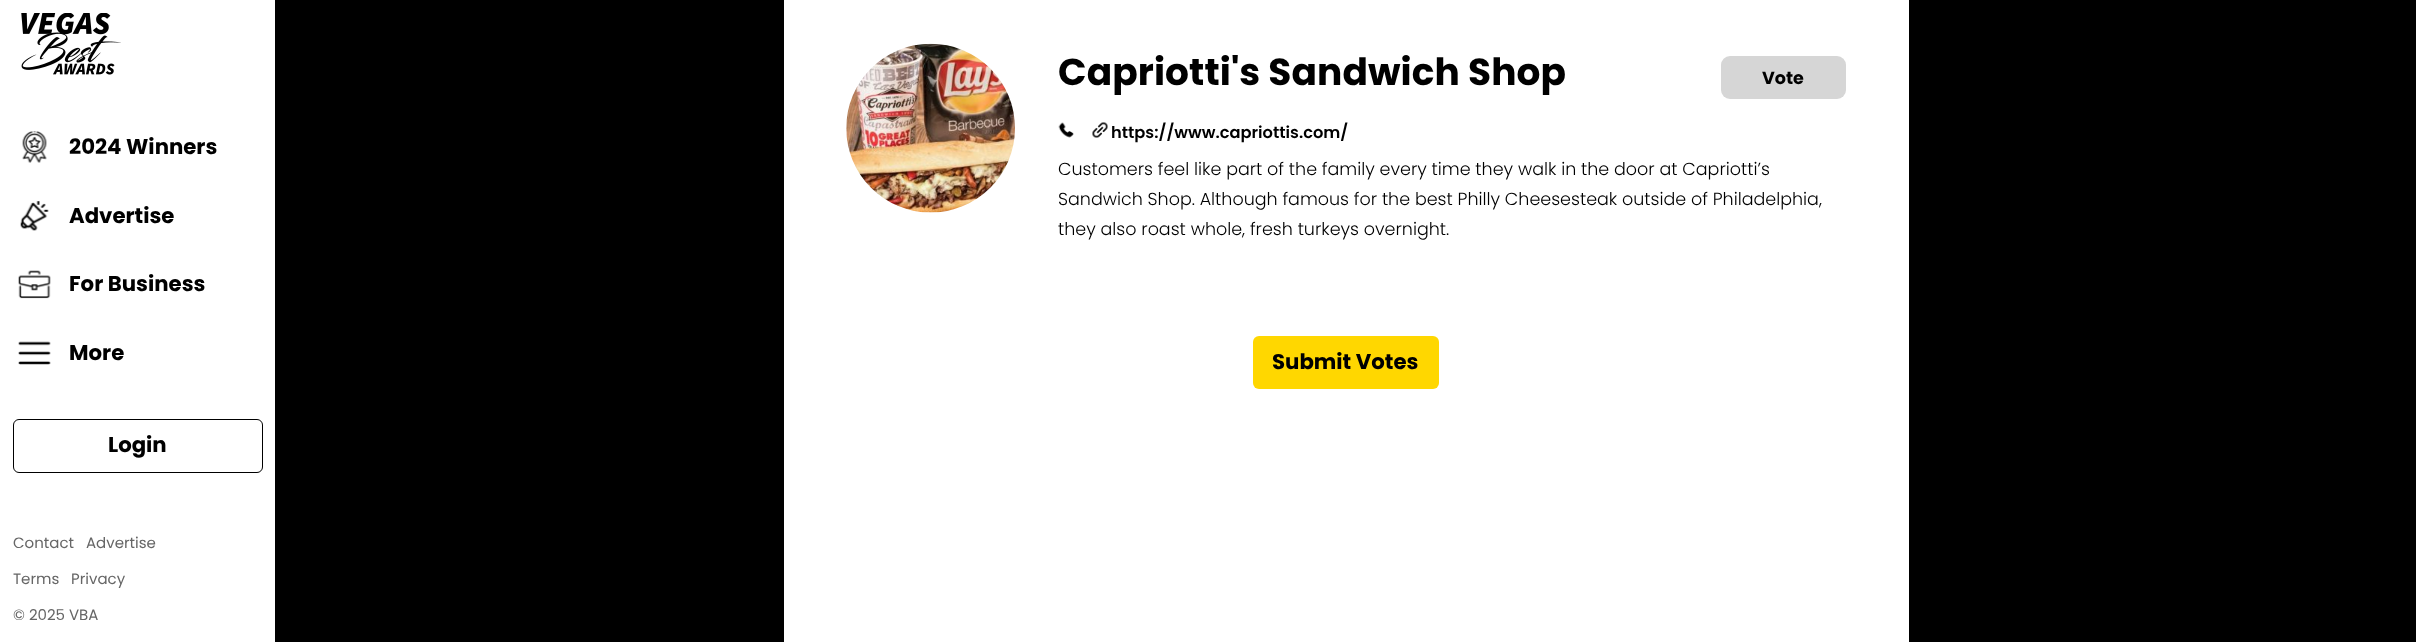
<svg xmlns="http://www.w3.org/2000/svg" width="2416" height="642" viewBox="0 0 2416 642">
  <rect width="100%" height="100%" fill="rgb(0,0,0)"/>
  <rect x="0" y="0" width="275" height="642" fill="rgb(255,255,255)"/>
  <image x="21" y="13" width="100" height="62" href="pic1.png"/>
  <image x="22" y="131" width="25" height="32" href="pic2.png"/>
  <text x="69" y="154" font-family="Poppins" font-size="21.25" font-weight="bold" fill="rgb(0,0,0)">2024 Winners</text>
  <image x="20" y="201" width="29" height="30" href="pic3.png"/>
  <text x="69" y="223" font-family="Poppins" font-size="21.25" font-weight="bold" fill="rgb(0,0,0)">Advertise</text>
  <image x="18" y="270" width="33" height="29" href="pic4.png"/>
  <text x="69" y="291" font-family="Poppins" font-size="21.25" font-weight="bold" fill="rgb(0,0,0)">For Business</text>
  <image x="18" y="341" width="33" height="24" href="pic5.png"/>
  <text x="69" y="360" font-family="Poppins" font-size="21.25" font-weight="bold" fill="rgb(0,0,0)">More</text>
  <rect x="13.5" y="419.5" width="249" height="53" rx="5.5" fill="none" stroke="rgb(0,0,0)"/>
  <text x="108" y="452" font-family="Poppins" font-size="21.25" font-weight="bold" fill="rgb(0,0,0)">Login</text>
  <g font-family="Poppins" font-size="15" fill="rgb(102,102,102)">
    <text x="13" y="548">Contact</text>
    <text x="86" y="548">Advertise</text>
    <text x="13" y="584">Terms</text>
    <text x="71" y="584">Privacy</text>
    <text x="13" y="620">© 2025 VBA</text>
  </g>
  <rect x="784" y="0" width="1125" height="642" fill="rgb(255,255,255)"/>
  <image x="846" y="43" width="169" height="170" href="pic6.png"/>
  <text x="1058" y="85" font-family="Poppins" font-size="37.5" font-weight="bold" letter-spacing="0.1" fill="rgb(0,0,0)">Capriotti's Sandwich Shop</text>
  <rect x="1721" y="56" width="125" height="43" rx="9" fill="rgb(214,214,214)"/>
  <text x="1762" y="84" font-family="Poppins" font-size="17.5" font-weight="bold" fill="rgb(0,0,0)">Vote</text>
  <image x="1058" y="122" width="16" height="16" href="pic7.png"/>
  <image x="1092" y="122" width="16" height="16" href="pic8.png"/>
  <text x="1111" y="138" font-family="Poppins" font-size="16.25" font-weight="600" fill="rgb(0,0,0)">https://www.capriottis.com/</text>
  <g font-family="Poppins" font-size="17.5" font-weight="300" fill="rgb(0,0,0)">
    <text>
      <tspan x="1058" y="175">Customers feel like part of the family every time they walk in the door at Capriotti’s</tspan>
      <tspan x="1058" y="205">Sandwich Shop. Although famous for the best Philly Cheesesteak outside of Philadelphia,</tspan>
      <tspan x="1058" y="235">they also roast whole, fresh turkeys overnight.</tspan>
    </text>
  </g>
  <rect x="1253" y="336" width="186" height="53" rx="6" fill="rgb(255,215,0)"/>
  <text x="1272" y="369" font-family="Poppins" font-size="21.25" font-weight="bold" fill="rgb(0,0,0)">Submit Votes</text>
</svg>
